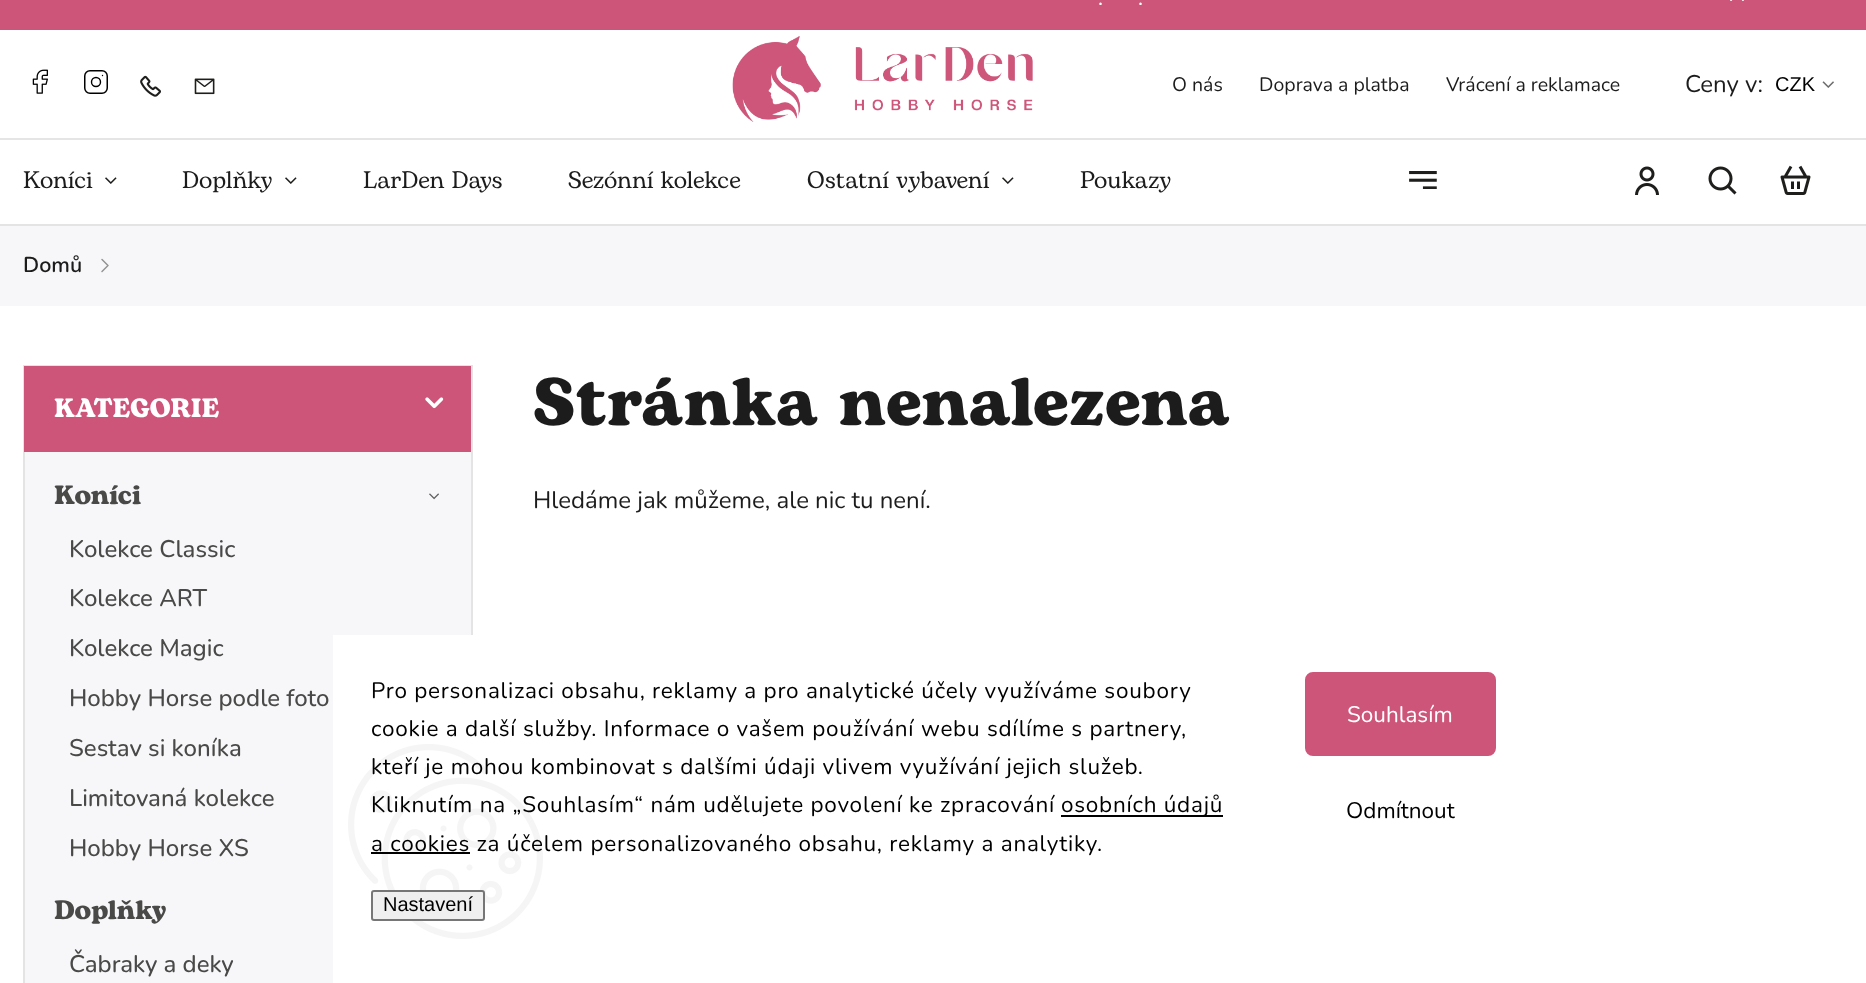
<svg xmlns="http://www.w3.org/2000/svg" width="1866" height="983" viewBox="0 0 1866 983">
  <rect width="100%" height="100%" fill="rgb(255,255,255)"/>
  <rect x="0" y="0" width="1866" height="30" fill="rgb(206,85,122)"/>
  <path d="M1743-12L1731 0M1731-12L1743 0" fill="none" stroke="rgb(255,255,255)" stroke-width="1.8" stroke-linecap="round" stroke-linejoin="round"/>
  <g font-family="Nunito" font-size="21.5" font-weight="500" letter-spacing="0.75" fill="rgb(255,255,255)">
    <text x="1098" y="5">.</text>
    <text x="1138" y="5">.</text>
  </g>
  <rect x="0" y="138" width="1866" height="2" fill="rgb(229,229,229)"/>
  <image x="32" y="69" width="16" height="25" href="pic1.png"/>
  <rect x="84.75" y="70.75" width="22.5" height="22.5" rx="5.25" fill="none" stroke="rgb(0,0,0)" stroke-width="1.5"/>
  <circle cx="96" cy="82" r="4.5" fill="none" stroke="rgb(0,0,0)" stroke-width="1.4"/>
  <path d="M102.5 75.5H102.5" fill="none" stroke="rgb(0,0,0)" stroke-width="1.4" stroke-linecap="round" stroke-linejoin="round"/>
  <image x="140" y="75" width="21" height="22" href="pic2.png"/>
  <image x="194" y="78" width="21" height="17" href="pic3.png"/>
  <image x="732" y="36" width="301" height="86" href="pic4.png"/>
  <g font-family="Nunito" font-size="19.5" fill="rgb(28,28,28)">
    <text x="1172" y="91">O nás</text>
    <text x="1259" y="91">Doprava a platba</text>
    <text x="1446" y="91">Vrácení a reklamace</text>
  </g>
  <text x="1685" y="92" font-family="Nunito" font-size="24" fill="rgb(28,28,28)">Ceny v:</text>
  <text x="1775" y="91" font-family="Liberation Sans" font-size="20" fill="rgb(0,0,0)">CZK</text>
  <image x="1822" y="81" width="12" height="7" href="pic5.png"/>
  <rect x="0" y="224" width="1866" height="2" fill="rgb(228,228,228)"/>
  <text x="23" y="188" font-family="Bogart" font-size="24" fill="rgb(28,28,28)">Koníci</text>
  <image x="105" y="177" width="12" height="7" href="pic6.png"/>
  <text x="182" y="188" font-family="Bogart" font-size="24" fill="rgb(28,28,28)">Doplňky</text>
  <image x="285" y="177" width="12" height="7" href="pic6.png"/>
  <g font-family="Bogart" font-size="24" fill="rgb(28,28,28)">
    <text x="363" y="188">LarDen Days</text>
    <text x="568" y="188">Sezónní kolekce</text>
    <text x="807" y="188">Ostatní vybavení</text>
  </g>
  <image x="1002" y="177" width="12" height="7" href="pic6.png"/>
  <text x="1080" y="188" font-family="Bogart" font-size="24" fill="rgb(28,28,28)">Poukazy</text>
  <image x="1409" y="171" width="28" height="18" href="pic7.png"/>
  <image x="1635" y="166" width="24" height="29" href="pic8.png"/>
  <image x="1708" y="166" width="29" height="29" href="pic9.png"/>
  <image x="1780" y="165" width="31" height="30" href="pic10.png"/>
  <rect x="0" y="226" width="1866" height="80" fill="rgb(247,247,249)"/>
  <text x="23" y="272" font-family="Nunito" font-size="21.5" font-weight="600" fill="rgb(28,28,28)">Domů</text>
  <path d="M102 271.5L108 265.5L102 259.5" fill="none" stroke="rgb(147,147,148)" stroke-width="1.5" stroke-linecap="round" stroke-linejoin="round"/>
  <rect x="25" y="452" width="446" height="531" fill="rgb(247,247,249)"/>
  <rect x="24" y="366" width="448" height="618" fill="none" stroke="rgb(228,228,228)" stroke-width="2"/>
  <rect x="24" y="366" width="447" height="86" fill="rgb(206,85,122)"/>
  <text x="54" y="417" font-family="Bogart" font-size="26.5" font-weight="bold" fill="rgb(255,255,255)">KATEGORIE</text>
  <image x="425" y="397" width="19" height="12" href="pic11.png"/>
  <text x="54" y="504" font-family="Bogart" font-size="26.5" font-weight="bold" fill="rgb(73,73,72)">Koníci</text>
  <image x="429" y="493" width="10" height="7" href="pic12.png"/>
  <g font-family="Nunito" font-size="24" font-weight="500" fill="rgb(73,73,72)">
    <text x="69" y="557">Kolekce Classic</text>
    <text x="69" y="606">Kolekce ART</text>
    <text x="69" y="656">Kolekce Magic</text>
    <text x="69" y="706">Hobby Horse podle foto</text>
    <text x="69" y="756">Sestav si koníka</text>
    <text x="69" y="806">Limitovaná kolekce</text>
    <text x="69" y="856">Hobby Horse XS</text>
  </g>
  <text x="54" y="919" font-family="Bogart" font-size="26.5" font-weight="bold" fill="rgb(73,73,72)">Doplňky</text>
  <text x="69" y="972" font-family="Nunito" font-size="24" font-weight="500" fill="rgb(73,73,72)">Čabraky a deky</text>
  <text x="533" y="425" font-family="Bogart" font-size="67.25" font-weight="bold" letter-spacing="0.75" fill="rgb(28,28,28)">Stránka nenalezena</text>
  <text x="533" y="508" font-family="Nunito" font-size="24" fill="rgb(28,28,28)">Hledáme jak můžeme, ale nic tu není.</text>
  <rect x="333" y="635" width="140" height="348" fill="rgb(255,255,255)"/>
  <g font-family="Nunito" font-size="22.5" letter-spacing="0.75" fill="rgb(0,0,0)">
    <text>
      <tspan x="371" y="698">Pro personalizaci obsahu, reklamy a pro analytické účely využíváme soubory</tspan>
      <tspan x="371" y="736">cookie a další služby. Informace o vašem používání webu sdílíme s partnery,</tspan>
    </text>
  </g>
  <image x="348" y="744" width="195" height="195" href="pic13.png"/>
  <g font-family="Nunito" font-size="22.5" letter-spacing="0.75" fill="rgb(0,0,0)">
    <text>
      <tspan x="371" y="774">kteří je mohou kombinovat s dalšími údaji vlivem využívání jejich služeb.</tspan>
      <tspan x="371" y="812">Kliknutím na „Souhlasím“ nám udělujete povolení ke zpracování</tspan>
    </text>
  </g>
  <rect x="1061" y="815" width="162" height="2" fill="rgb(0,0,0)"/>
  <text x="1061" y="812" font-family="Nunito" font-size="22.5" letter-spacing="0.75" fill="rgb(0,0,0)">osobních údajů</text>
  <rect x="371" y="852" width="99" height="2" fill="rgb(0,0,0)"/>
  <text x="371" y="851" font-family="Nunito" font-size="22.5" letter-spacing="0.75" fill="rgb(0,0,0)">a cookies za účelem personalizovaného obsahu, reklamy a analytiky.</text>
  <rect x="372" y="891" width="112" height="29" rx="2" fill="rgb(239,239,239)" stroke="rgb(118,118,118)" stroke-width="2"/>
  <text x="383" y="911" font-family="Liberation Sans" font-size="20" fill="rgb(0,0,0)">Nastavení</text>
  <rect x="1306" y="673" width="189" height="82" rx="7" fill="rgb(206,85,122)" stroke="rgb(206,85,122)" stroke-width="2"/>
  <text x="1347" y="722" font-family="Nunito" font-size="22.5" fill="rgb(255,255,255)">Souhlasím</text>
  <text x="1346" y="818" font-family="Nunito" font-size="22.5" fill="rgb(0,0,0)">Odmítnout</text>
</svg>
